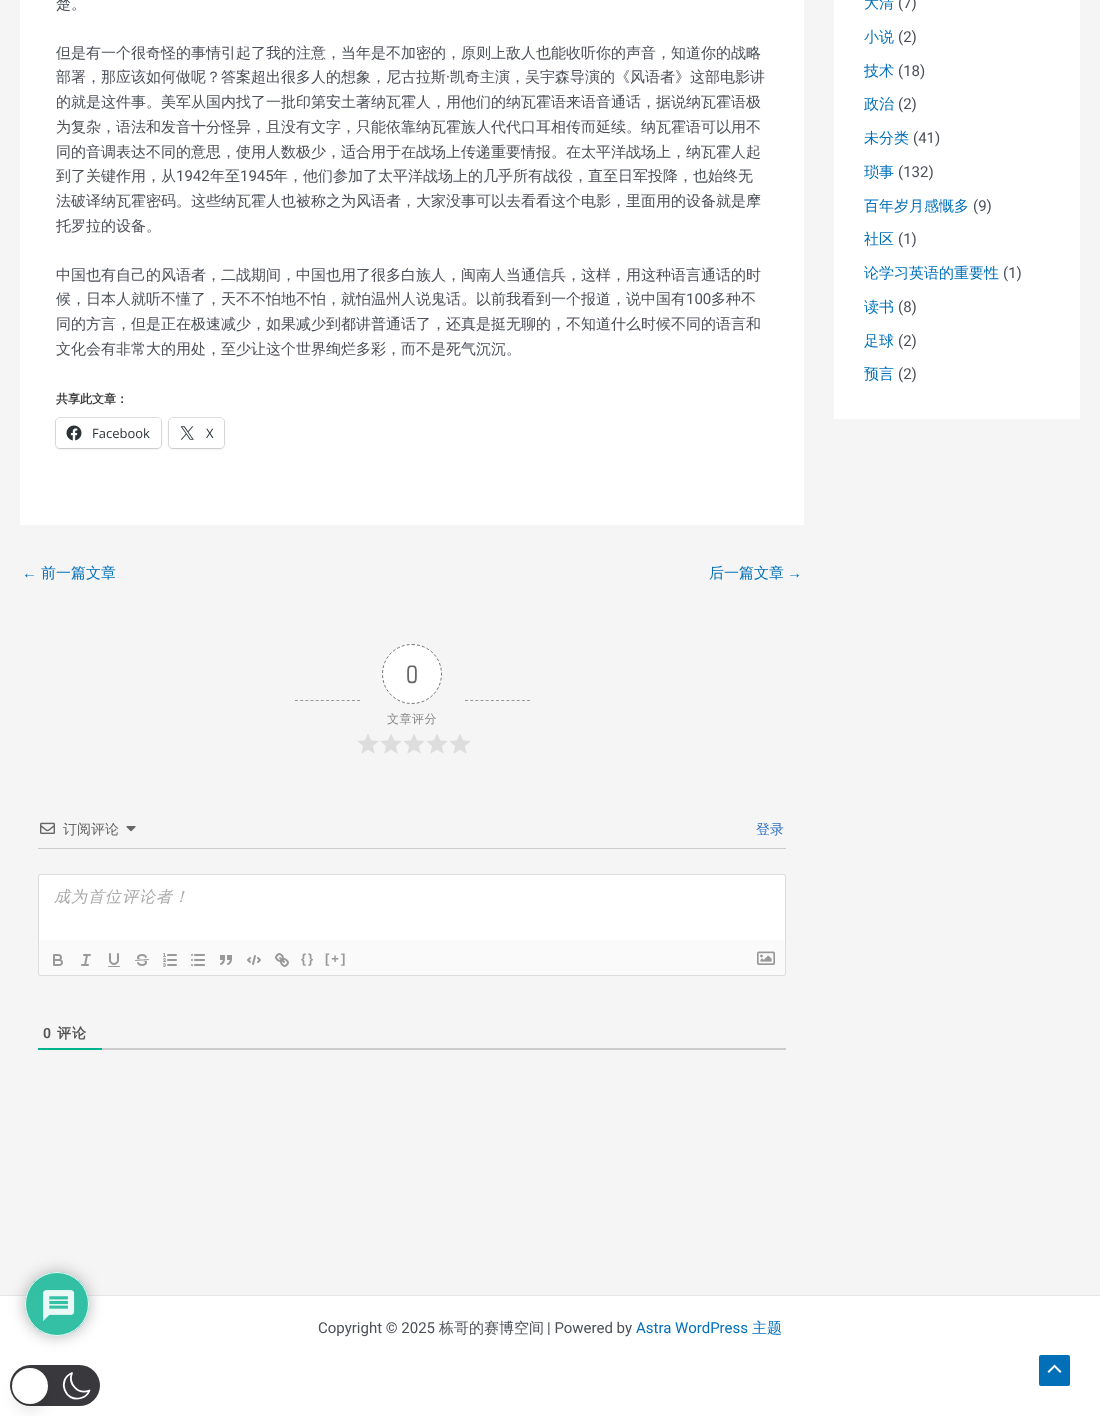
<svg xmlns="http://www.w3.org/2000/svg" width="1100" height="1416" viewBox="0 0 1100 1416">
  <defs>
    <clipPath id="clip1"><path d="M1 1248H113V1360H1ZM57 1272C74.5 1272 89 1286.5 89 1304C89 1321.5 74.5 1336 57 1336C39.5 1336 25 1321.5 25 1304C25 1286.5 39.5 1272 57 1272Z" clip-rule="evenodd"/></clipPath>
  </defs>
  <rect width="100%" height="100%" fill="rgb(245,245,245)"/>
  <rect x="20" y="0" width="784" height="525" fill="rgb(255,255,255)"/>
  <g font-family="WenQuanYi Zen Hei" font-size="15" font-weight="500" fill="rgb(75,79,88)">
    <text x="56" y="9">楚。</text>
    <text>
      <tspan x="56" y="58">但是有一个很奇怪的事情引起了我的注意，当年是不加密的，原则上敌人也能收听你的声音，知道你的战略</tspan>
      <tspan x="56" y="82">部署，那应该如何做呢？答案超出很多人的想象，尼古拉斯</tspan>
    </text>
  </g>
  <text x="446" y="82" font-family="Roboto" font-size="15" fill="rgb(75,79,88)">·</text>
  <g font-family="WenQuanYi Zen Hei" font-size="15" font-weight="500" fill="rgb(75,79,88)">
    <text x="450" y="82">凯奇主演，吴宇森导演的《风语者》这部电影讲</text>
    <text>
      <tspan x="56" y="107">的就是这件事。美军从国内找了一批印第安土著纳瓦霍人，用他们的纳瓦霍语来语音通话，据说纳瓦霍语极</tspan>
      <tspan x="56" y="132">为复杂，语法和发音十分怪异，且没有文字，只能依靠纳瓦霍族人代代口耳相传而延续。纳瓦霍语可以用不</tspan>
      <tspan x="56" y="157">同的音调表达不同的意思，使用人数极少，适合用于在战场上传递重要情报。在太平洋战场上，纳瓦霍人起</tspan>
      <tspan x="56" y="181">到了关键作用，从</tspan>
    </text>
  </g>
  <text x="176" y="181" font-family="Roboto" font-size="15" fill="rgb(75,79,88)">1942</text>
  <text x="210" y="181" font-family="WenQuanYi Zen Hei" font-size="15" font-weight="500" fill="rgb(75,79,88)">年至</text>
  <text x="240" y="181" font-family="Roboto" font-size="15" fill="rgb(75,79,88)">1945</text>
  <g font-family="WenQuanYi Zen Hei" font-size="15" font-weight="500" fill="rgb(75,79,88)">
    <text x="273" y="181">年，他们参加了太平洋战场上的几乎所有战役，直至日军投降，也始终无</text>
    <text>
      <tspan x="56" y="206">法破译纳瓦霍密码。这些纳瓦霍人也被称之为风语者，大家没事可以去看看这个电影，里面用的设备就是摩</tspan>
      <tspan x="56" y="231">托罗拉的设备。</tspan>
    </text>
    <text>
      <tspan x="56" y="280">中国也有自己的风语者，二战期间，中国也用了很多白族人，闽南人当通信兵，这样，用这种语言通话的时</tspan>
      <tspan x="56" y="304">候，日本人就听不懂了，天不不怕地不怕，就怕温州人说鬼话。以前我看到一个报道，说中国有</tspan>
    </text>
  </g>
  <text x="686" y="304" font-family="Roboto" font-size="15" fill="rgb(75,79,88)">100</text>
  <g font-family="WenQuanYi Zen Hei" font-size="15" font-weight="500" fill="rgb(75,79,88)">
    <text x="711" y="304">多种不</text>
    <text>
      <tspan x="56" y="329">同的方言，但是正在极速减少，如果减少到都讲普通话了，还真是挺无聊的，不知道什么时候不同的语言和</tspan>
      <tspan x="56" y="354">文化会有非常大的用处，至少让这个世界绚烂多彩，而不是死气沉沉。</tspan>
    </text>
  </g>
  <text x="56" y="403" font-family="WenQuanYi Zen Hei" font-size="12" font-weight="bold" fill="rgb(58,58,58)">共享此文章：</text>
  <rect x="55.5" y="417.5" width="106" height="31" rx="4.5" fill="none" stroke="rgb(224,224,224)"/>
  <rect x="56" y="419" width="105" height="30" rx="4" fill="rgba(0,0,0,0.12)" filter="blur(1px)"/>
  <rect x="56" y="418" width="105" height="30" rx="4" fill="rgb(255,255,255)"/>
  <image x="66" y="425" width="16" height="16" href="pic1.png"/>
  <text x="92" y="438" font-family="Open Sans" font-size="13" fill="rgb(44,51,56)">Facebook</text>
  <rect x="168.5" y="417.5" width="56" height="31" rx="4.5" fill="none" stroke="rgb(224,224,224)"/>
  <rect x="169" y="419" width="55" height="30" rx="4" fill="rgba(0,0,0,0.12)" filter="blur(1px)"/>
  <rect x="169" y="418" width="55" height="30" rx="4" fill="rgb(255,255,255)"/>
  <image x="180" y="426" width="14" height="14" href="pic2.png"/>
  <text x="206" y="438" font-family="Open Sans" font-size="13" fill="rgb(44,51,56)">X</text>
  <text x="22" y="578" font-family="Liberation Sans" font-size="15" fill="rgb(1,112,185)">←</text>
  <g font-family="WenQuanYi Zen Hei" font-size="15" font-weight="500" fill="rgb(1,112,185)">
    <text x="41" y="578">前一篇文章</text>
    <text x="709" y="578">后一篇文章</text>
  </g>
  <text x="787" y="578" font-family="Liberation Sans" font-size="15" fill="rgb(1,112,185)">→</text>
  <path d="M295 700.5H360" fill="none" stroke="rgb(153,153,153)" stroke-dasharray="3 2.17"/>
  <circle cx="412" cy="674" r="30" fill="rgb(255,255,255)"/>
  <path d="M412 644.5C428.5 644.5 441.5 657.5 441.5 674C441.5 690.5 428.5 703.5 412 703.5C395.5 703.5 382.5 690.5 382.5 674C382.5 657.5 395.5 644.5 412 644.5Z" fill="none" stroke="rgb(119,119,119)" stroke-dasharray="3 2"/>
  <text x="406" y="683" font-family="'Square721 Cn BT'" font-size="24" fill="rgb(102,102,102)">0</text>
  <text x="387" y="723" font-family="WenQuanYi Zen Hei" font-size="12" font-weight="500" letter-spacing="0.5" fill="rgb(136,136,136)">文章评分</text>
  <image x="357" y="734" width="22" height="20" href="pic3.png"/>
  <image x="380" y="734" width="22" height="20" href="pic3.png"/>
  <image x="403" y="734" width="22" height="20" href="pic3.png"/>
  <image x="426" y="734" width="22" height="20" href="pic3.png"/>
  <image x="449" y="734" width="22" height="20" href="pic3.png"/>
  <path d="M465 700.5H530" fill="none" stroke="rgb(153,153,153)" stroke-dasharray="3 2.17"/>
  <rect x="38" y="848" width="748" height="1" fill="rgb(204,204,204)"/>
  <image x="40" y="822" width="15" height="12" href="pic4.png"/>
  <text x="63" y="834" font-family="WenQuanYi Zen Hei" font-size="14" font-weight="500" fill="rgb(102,102,102)">订阅评论</text>
  <image x="126" y="826" width="10" height="6" href="pic5.png"/>
  <text x="756" y="834" font-family="WenQuanYi Zen Hei" font-size="14" font-weight="500" fill="rgb(50,114,191)">登录</text>
  <path d="M41 874H783C784.5 874 786 875.5 786 877V940H38V877C38 875.5 39.5 874 41 874Z" fill="rgb(255,255,255)"/>
  <path d="M41 874H783C785 874 786 875 786 877V940H38V877C38 875 39 874 41 874ZM41 875H783C784 875 785 876 785 877V940H39V877C39 876 40 875 41 875Z" fill="rgb(221,221,221)" fill-rule="evenodd"/>
  <text x="54" y="902" font-family="WenQuanYi Zen Hei" font-size="16" font-weight="500" font-style="italic" letter-spacing="1" fill="rgb(170,170,170)">成为首位评论者！</text>
  <path d="M38 940H786V973C786 974.5 784.5 976 783 976H41C39.5 976 38 974.5 38 973Z" fill="rgb(250,250,250)"/>
  <path d="M38 940H786V973C786 975 785 976 783 976H41C39 976 38 975 38 973ZM39 940H785V973C785 974 784 975 783 975H41C40 975 39 974 39 973Z" fill="rgb(221,221,221)" fill-rule="evenodd"/>
  <image x="53" y="954" width="10" height="12" href="pic6.png"/>
  <image x="81" y="954" width="10" height="12" href="pic7.png"/>
  <image x="108" y="953" width="12" height="14" href="pic8.png"/>
  <image x="135" y="954" width="14" height="12" href="pic9.png"/>
  <image x="163" y="953" width="14" height="14" href="pic10.png"/>
  <image x="191" y="954" width="14" height="12" href="pic11.png"/>
  <image x="220" y="955" width="12" height="10" href="pic12.png"/>
  <image x="247" y="955" width="14" height="10" href="pic13.png"/>
  <image x="275" y="953" width="14" height="14" href="pic14.png"/>
  <g font-family="Liberation Sans" font-size="13" font-weight="bold" letter-spacing="2" fill="rgb(153,153,153)">
    <text x="301" y="963">{}</text>
    <text x="325" y="963">[+]</text>
  </g>
  <image x="757" y="951" width="18" height="14" href="pic15.png"/>
  <rect x="102" y="1048" width="684" height="2" fill="rgb(204,204,204)"/>
  <rect x="38" y="1048" width="64" height="2" fill="rgb(0,179,143)"/>
  <text x="43" y="1038" font-family="Roboto" font-size="14" font-weight="600" letter-spacing="1" fill="rgb(85,85,85)">0</text>
  <text x="57" y="1038" font-family="WenQuanYi Zen Hei" font-size="14" font-weight="bold" letter-spacing="1" fill="rgb(85,85,85)">评论</text>
  <rect x="834" y="0" width="246" height="419" fill="rgb(255,255,255)"/>
  <text x="864" y="8" font-family="WenQuanYi Zen Hei" font-size="15" font-weight="500" fill="rgb(1,112,185)">大清</text>
  <text x="898" y="8" font-family="Roboto" font-size="15" fill="rgb(75,79,88)">(7)</text>
  <text x="864" y="42" font-family="WenQuanYi Zen Hei" font-size="15" font-weight="500" fill="rgb(1,112,185)">小说</text>
  <text x="898" y="42" font-family="Roboto" font-size="15" fill="rgb(75,79,88)">(2)</text>
  <text x="864" y="76" font-family="WenQuanYi Zen Hei" font-size="15" font-weight="500" fill="rgb(1,112,185)">技术</text>
  <text x="898" y="76" font-family="Roboto" font-size="15" fill="rgb(75,79,88)">(18)</text>
  <text x="864" y="109" font-family="WenQuanYi Zen Hei" font-size="15" font-weight="500" fill="rgb(1,112,185)">政治</text>
  <text x="898" y="109" font-family="Roboto" font-size="15" fill="rgb(75,79,88)">(2)</text>
  <text x="864" y="143" font-family="WenQuanYi Zen Hei" font-size="15" font-weight="500" fill="rgb(1,112,185)">未分类</text>
  <text x="913" y="143" font-family="Roboto" font-size="15" fill="rgb(75,79,88)">(41)</text>
  <text x="864" y="177" font-family="WenQuanYi Zen Hei" font-size="15" font-weight="500" fill="rgb(1,112,185)">琐事</text>
  <text x="898" y="177" font-family="Roboto" font-size="15" fill="rgb(75,79,88)">(132)</text>
  <text x="864" y="211" font-family="WenQuanYi Zen Hei" font-size="15" font-weight="500" fill="rgb(1,112,185)">百年岁月感慨多</text>
  <text x="973" y="211" font-family="Roboto" font-size="15" fill="rgb(75,79,88)">(9)</text>
  <text x="864" y="244" font-family="WenQuanYi Zen Hei" font-size="15" font-weight="500" fill="rgb(1,112,185)">社区</text>
  <text x="898" y="244" font-family="Roboto" font-size="15" fill="rgb(75,79,88)">(1)</text>
  <text x="864" y="278" font-family="WenQuanYi Zen Hei" font-size="15" font-weight="500" fill="rgb(1,112,185)">论学习英语的重要性</text>
  <text x="1003" y="278" font-family="Roboto" font-size="15" fill="rgb(75,79,88)">(1)</text>
  <text x="864" y="312" font-family="WenQuanYi Zen Hei" font-size="15" font-weight="500" fill="rgb(1,112,185)">读书</text>
  <text x="898" y="312" font-family="Roboto" font-size="15" fill="rgb(75,79,88)">(8)</text>
  <text x="864" y="346" font-family="WenQuanYi Zen Hei" font-size="15" font-weight="500" fill="rgb(1,112,185)">足球</text>
  <text x="898" y="346" font-family="Roboto" font-size="15" fill="rgb(75,79,88)">(2)</text>
  <text x="864" y="379" font-family="WenQuanYi Zen Hei" font-size="15" font-weight="500" fill="rgb(1,112,185)">预言</text>
  <text x="898" y="379" font-family="Roboto" font-size="15" fill="rgb(75,79,88)">(2)</text>
  <rect x="0" y="1296" width="1100" height="120" fill="rgb(255,255,255)"/>
  <rect x="0" y="1295" width="1100" height="1" fill="rgb(229,229,229)"/>
  <text x="318" y="1333" font-family="Roboto" font-size="15" fill="rgb(75,79,88)">Copyright © 2025</text>
  <text x="439" y="1333" font-family="WenQuanYi Zen Hei" font-size="15" font-weight="500" fill="rgb(75,79,88)">栋哥的赛博空间</text>
  <text x="547" y="1333" font-family="Roboto" font-size="15" fill="rgb(75,79,88)">| Powered by</text>
  <text x="636" y="1333" font-family="Roboto" font-size="15" fill="rgb(1,112,185)">Astra WordPress</text>
  <text x="752" y="1333" font-family="WenQuanYi Zen Hei" font-size="15" font-weight="500" fill="rgb(1,112,185)">主题</text>
  <g clip-path="url(#clip1)">
    <rect x="25" y="1272" width="64" height="64" rx="32" fill="rgba(170,170,170,0.9)" filter="blur(7.5px)"/>
  </g>
  <circle cx="57" cy="1304" r="32" fill="rgba(29,185,154,0.9)"/>
  <circle cx="57" cy="1304" r="31.5" fill="none" stroke="rgba(255,255,255,0.9)"/>
  <image x="43" y="1290" width="32" height="31" href="pic16.png"/>
  <rect x="10" y="1365" width="90" height="41" rx="20.5" fill="rgb(57,57,61)"/>
  <path d="M89.5 1390.5C78.5 1395 67.5 1384 72 1373C56.5 1379.5 65 1403 81 1398C85 1397 88 1394 89.5 1390.5Z" fill="none" stroke="rgb(255,255,255)" stroke-width="1.8" stroke-linecap="round" stroke-linejoin="round"/>
  <rect x="15" y="1381" width="30" height="30" rx="15" fill="rgba(0,0,0,0.1)" filter="blur(7.5px)"/>
  <circle cx="30" cy="1386" r="18" fill="rgb(255,255,255)"/>
  <rect x="1039" y="1355" width="31" height="31" rx="2" fill="rgb(1,112,185)"/>
  <image x="1047" y="1364" width="15" height="9" href="pic17.png"/>
</svg>
